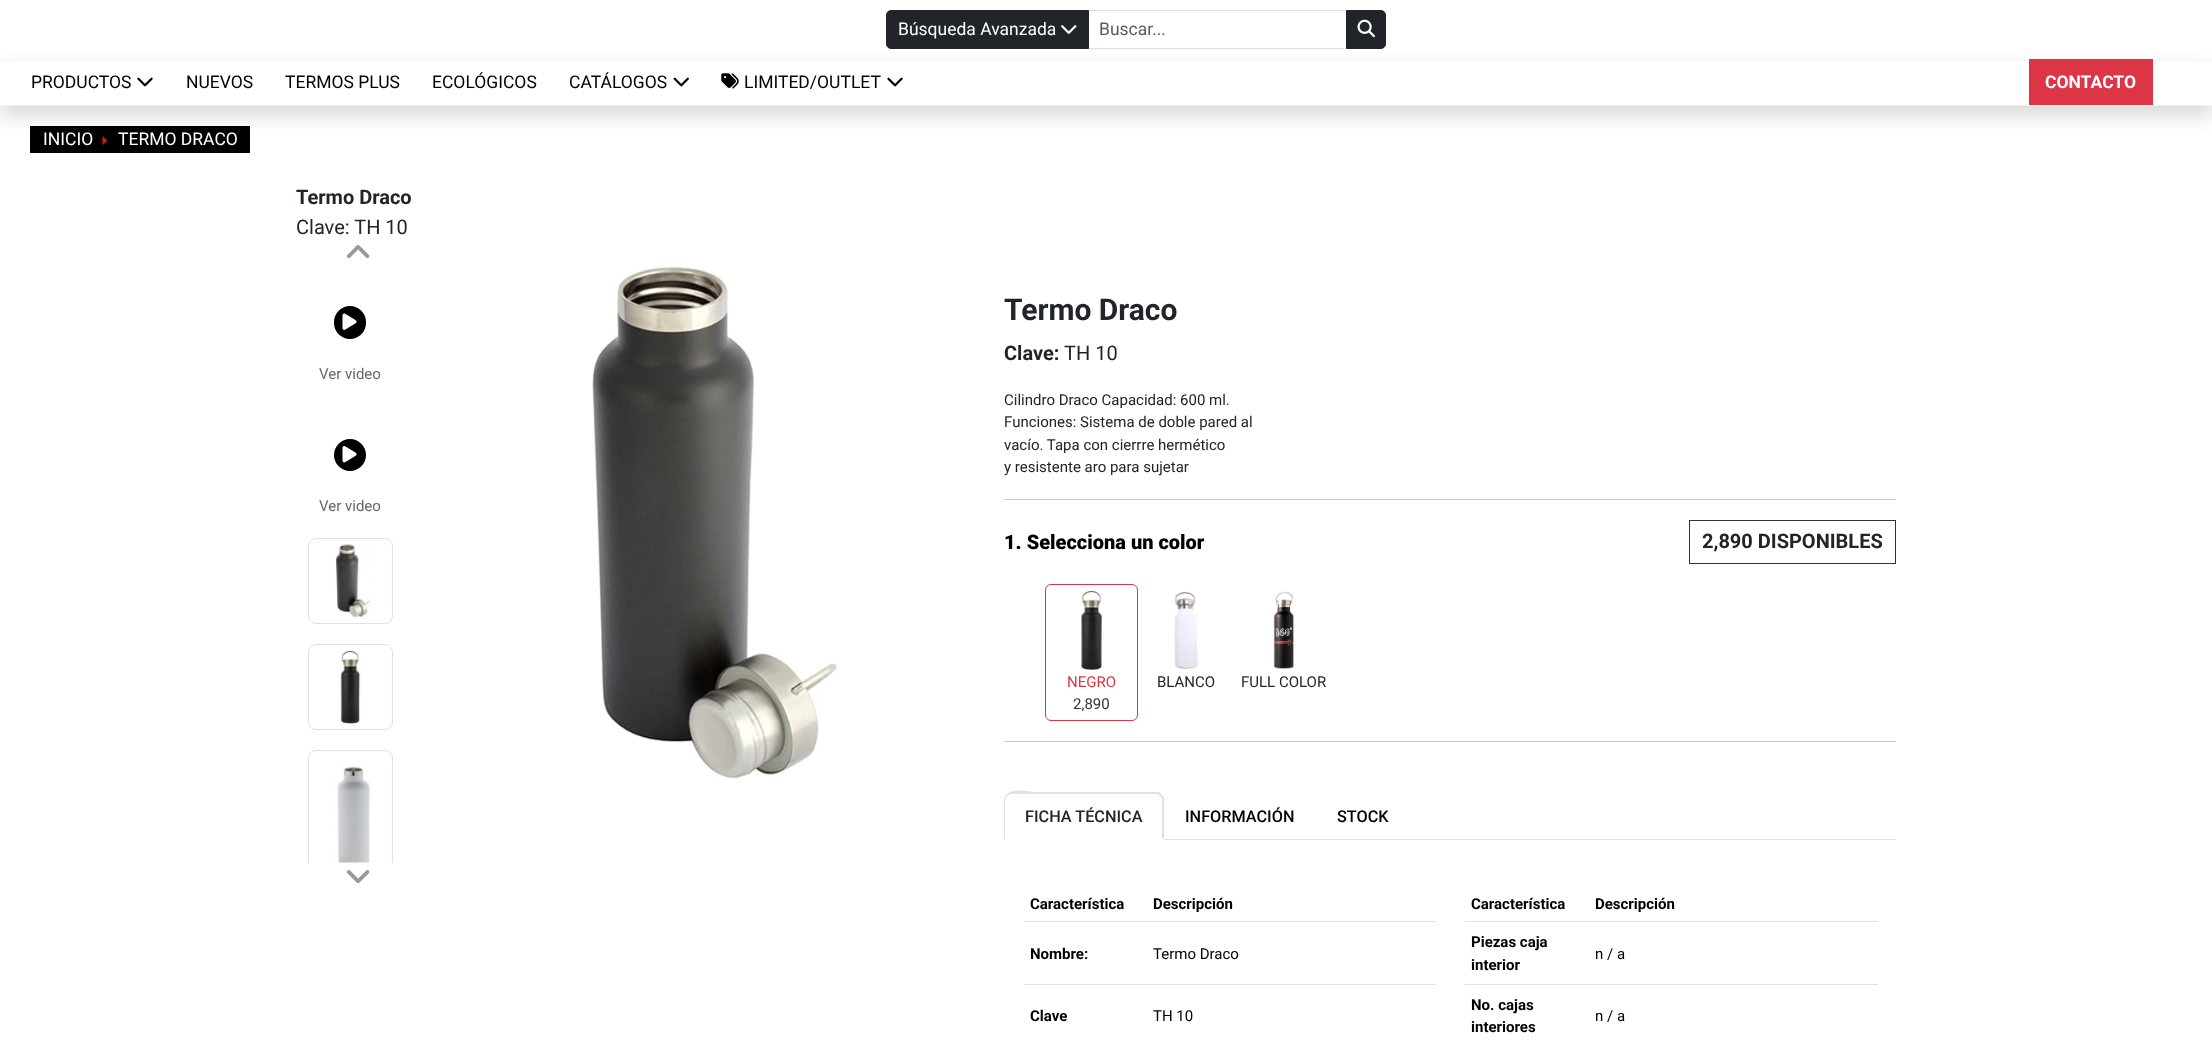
<svg xmlns="http://www.w3.org/2000/svg" width="2212" height="1041" viewBox="0 0 2212 1041">
  <defs>
    <linearGradient id="g1" gradientUnits="userSpaceOnUse" x1="1106" y1="59" x2="1106" y2="105"><stop offset="0" stop-color="rgb(247,247,247)"/><stop offset="0.1" stop-color="rgb(255,255,255)"/></linearGradient>
    <clipPath id="clip1"><rect x="296" y="263" width="108" height="600"/></clipPath>
  </defs>
  <rect width="100%" height="100%" fill="rgb(255,255,255)"/>
  <rect x="1088.5" y="10.5" width="259" height="38" fill="none" stroke="rgb(222,226,230)"/>
  <path d="M891 10.5H1088.5V48.5H891C888.5 48.5 886.5 46.5 886.5 44V15C886.5 12.5 888.5 10.5 891 10.5Z" fill="rgb(33,37,41)" stroke="rgb(33,37,41)"/>
  <text x="898" y="35" font-family="Roboto" font-size="17.5" fill="rgb(255,255,255)">Búsqueda Avanzada</text>
  <image x="1061" y="25" width="16" height="9" href="pic1.png"/>
  <text x="1099" y="35" font-family="Roboto" font-size="17.5" fill="rgb(89,92,95)">Buscar...</text>
  <path d="M1346.5 10.5H1381C1383.5 10.5 1385.5 12.5 1385.5 15V44C1385.5 46.5 1383.5 48.5 1381 48.5H1346.5Z" fill="rgb(33,37,41)" stroke="rgb(33,37,41)"/>
  <image x="1357" y="19" width="18" height="19" href="pic2.png"/>
  <rect x="30" y="126" width="220" height="27" fill="rgb(0,0,0)"/>
  <image x="102" y="136" width="6" height="9" href="pic6.png"/>
  <rect x="0" y="69" width="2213" height="47" fill="rgba(0,0,0,0.15)" filter="blur(10px)"/>
  <rect x="0" y="59" width="2212" height="46" fill="url(#g1)"/>
  <rect x="0" y="105" width="2212" height="1" fill="rgb(241,241,241)"/>
  <text x="31" y="88" font-family="Roboto" font-size="17.5" fill="rgb(0,0,0)">PRODUCTOS</text>
  <image x="137" y="77" width="16" height="10" href="pic3.png"/>
  <g font-family="Roboto" font-size="17.5" fill="rgb(0,0,0)">
    <text x="186" y="88">NUEVOS</text>
    <text x="285" y="88">TERMOS PLUS</text>
    <text x="432" y="88">ECOLÓGICOS</text>
    <text x="569" y="88">CATÁLOGOS</text>
  </g>
  <image x="673" y="77" width="16" height="10" href="pic4.png"/>
  <image x="721" y="73" width="18" height="16" href="pic5.png"/>
  <text x="744" y="88" font-family="Roboto" font-size="17.5" fill="rgb(0,0,0)">LIMITED/OUTLET</text>
  <image x="887" y="77" width="16" height="10" href="pic3.png"/>
  <rect x="2029" y="59" width="124" height="46" fill="rgb(220,53,69)"/>
  <text x="2045" y="88" font-family="Roboto" font-size="17.5" font-weight="bold" fill="rgb(255,255,255)">CONTACTO</text>
  <g font-family="Roboto" font-size="17.5" fill="rgb(255,255,255)">
    <text x="43" y="145">INICIO</text>
    <text x="118" y="145">TERMO DRACO</text>
  </g>
  <text x="296" y="204" font-family="Roboto" font-size="20" font-weight="bold" fill="rgb(33,37,41)">Termo Draco</text>
  <text x="296" y="234" font-family="Roboto" font-size="20" fill="rgb(33,37,41)">Clave: TH 10</text>
  <image x="346" y="245" width="24" height="14" href="pic7.png"/>
  <rect x="334" y="306" width="32" height="33" rx="16" fill="rgb(0,0,0)"/>
  <image x="342" y="313" width="15" height="17" href="pic8.png"/>
  <text x="319" y="379" font-family="Roboto" font-size="15" fill="rgb(102,102,102)">Ver video</text>
  <circle cx="350" cy="455" r="16" fill="rgb(0,0,0)"/>
  <image x="342" y="446" width="15" height="17" href="pic9.png"/>
  <text x="319" y="511" font-family="Roboto" font-size="15" fill="rgb(102,102,102)">Ver video</text>
  <rect x="308.5" y="538.5" width="84" height="85" rx="7.5" fill="none" stroke="rgb(222,226,230)"/>
  <image x="335" y="544" width="36" height="74" href="pic10.png"/>
  <rect x="308.5" y="644.5" width="84" height="85" rx="7.5" fill="none" stroke="rgb(222,226,230)"/>
  <image x="340" y="650" width="21" height="74" href="pic11.png"/>
  <g clip-path="url(#clip1)">
    <rect x="308.5" y="750.5" width="84" height="153" rx="7.5" fill="none" stroke="rgb(222,226,230)"/>
  </g>
  <image x="328" y="765" width="43" height="98" href="pic12.png"/>
  <image x="346" y="870" width="24" height="14" href="pic13.png"/>
  <image x="592" y="265" width="245" height="516" href="pic14.png"/>
  <text x="1004" y="320" font-family="Roboto" font-size="30" font-weight="bold" fill="rgb(33,37,41)">Termo Draco</text>
  <text x="1004" y="360" font-family="Roboto" font-size="20" font-weight="bold" fill="rgb(33,37,41)">Clave:</text>
  <text x="1064" y="360" font-family="Roboto" font-size="20" fill="rgb(33,37,41)">TH 10</text>
  <g font-family="Roboto" font-size="15" fill="rgb(33,37,41)">
    <text>
      <tspan x="1004" y="405">Cilindro Draco Capacidad: 600 ml.</tspan>
      <tspan x="1004" y="427">Funciones: Sistema de doble pared al</tspan>
      <tspan x="1004" y="450">vacío. Tapa con cierrre hermético</tspan>
      <tspan x="1004" y="472">y resistente aro para sujetar</tspan>
    </text>
  </g>
  <rect x="1004" y="499" width="892" height="1" fill="rgb(200,201,202)"/>
  <text x="1004" y="549" font-family="Roboto" font-size="20" font-weight="900" fill="rgb(0,0,0)">1. Selecciona un color</text>
  <rect x="1689.5" y="520.5" width="206" height="43" fill="none" stroke="rgb(51,51,51)"/>
  <text x="1702" y="548" font-family="Roboto" font-size="20" font-weight="bold" fill="rgb(33,37,41)">2,890 DISPONIBLES</text>
  <rect x="1045.5" y="584.5" width="92" height="136" rx="5.5" fill="none" stroke="rgb(220,53,69)"/>
  <image x="1081" y="590" width="21" height="80" href="pic15.png"/>
  <text x="1067" y="687" font-family="Roboto" font-size="15" fill="rgb(220,53,69)">NEGRO</text>
  <text x="1073" y="709" font-family="Roboto" font-size="15" fill="rgb(51,51,51)">2,890</text>
  <image x="1174" y="591" width="24" height="78" href="pic16.png"/>
  <text x="1157" y="687" font-family="Roboto" font-size="15" fill="rgb(33,37,41)">BLANCO</text>
  <image x="1273" y="591" width="21" height="78" href="pic17.png"/>
  <text x="1241" y="687" font-family="Roboto" font-size="15" fill="rgb(33,37,41)">FULL COLOR</text>
  <rect x="1004" y="741" width="892" height="1" fill="rgb(200,201,202)"/>
  <rect x="1164" y="839" width="732" height="1" fill="rgb(222,226,230)"/>
  <path d="M1011 794C1010 794 1008 795 1007 796L1006 795C1012 787 1031 792 1034 792H1159L1162 795L1160 796C1159 795 1158 794 1156 794Z" fill="rgb(222,226,230)"/>
  <path d="M1164 798V840L1162 838V800C1162 798 1161 797 1160 796L1162 795Z" fill="rgb(222,226,230)"/>
  <path d="M1164 840L1162 838V839H1005L1004 840Z" fill="rgb(255,255,255)"/>
  <path d="M1004 840V800C1004 798 1005 796 1006 795L1007 796C1006 797 1005 798 1005 800V839Z" fill="rgb(222,226,230)"/>
  <text x="1025" y="822" font-family="Roboto" font-size="16.25" font-weight="500" fill="rgb(33,37,41)">FICHA TÉCNICA</text>
  <g font-family="Roboto" font-size="16.25" font-weight="500" fill="rgb(0,0,0)">
    <text x="1185" y="822">INFORMACIÓN</text>
    <text x="1337" y="822">STOCK</text>
  </g>
  <text x="1030" y="909" font-family="Roboto" font-size="15" font-weight="bold" fill="rgb(0,0,0)">Característica</text>
  <rect x="1024" y="921" width="412" height="1" fill="rgb(222,226,230)"/>
  <g font-family="Roboto" font-size="15" font-weight="bold" fill="rgb(0,0,0)">
    <text x="1153" y="909">Descripción</text>
    <text x="1030" y="959">Nombre:</text>
  </g>
  <rect x="1024" y="984" width="412" height="1" fill="rgb(222,226,230)"/>
  <text x="1153" y="959" font-family="Roboto" font-size="15" fill="rgb(0,0,0)">Termo Draco</text>
  <text x="1030" y="1021" font-family="Roboto" font-size="15" font-weight="bold" fill="rgb(0,0,0)">Clave</text>
  <text x="1153" y="1021" font-family="Roboto" font-size="15" fill="rgb(0,0,0)">TH 10</text>
  <text x="1471" y="909" font-family="Roboto" font-size="15" font-weight="bold" fill="rgb(0,0,0)">Característica</text>
  <rect x="1465" y="921" width="413" height="1" fill="rgb(222,226,230)"/>
  <g font-family="Roboto" font-size="15" font-weight="bold" fill="rgb(0,0,0)">
    <text x="1595" y="909">Descripción</text>
    <text>
      <tspan x="1471" y="947">Piezas caja</tspan>
      <tspan x="1471" y="970">interior</tspan>
    </text>
  </g>
  <rect x="1465" y="984" width="413" height="1" fill="rgb(222,226,230)"/>
  <text x="1595" y="959" font-family="Roboto" font-size="15" fill="rgb(0,0,0)">n / a</text>
  <g font-family="Roboto" font-size="15" font-weight="bold" fill="rgb(0,0,0)">
    <text>
      <tspan x="1471" y="1010">No. cajas</tspan>
      <tspan x="1471" y="1032">interiores</tspan>
    </text>
  </g>
  <text x="1595" y="1021" font-family="Roboto" font-size="15" fill="rgb(0,0,0)">n / a</text>
</svg>
